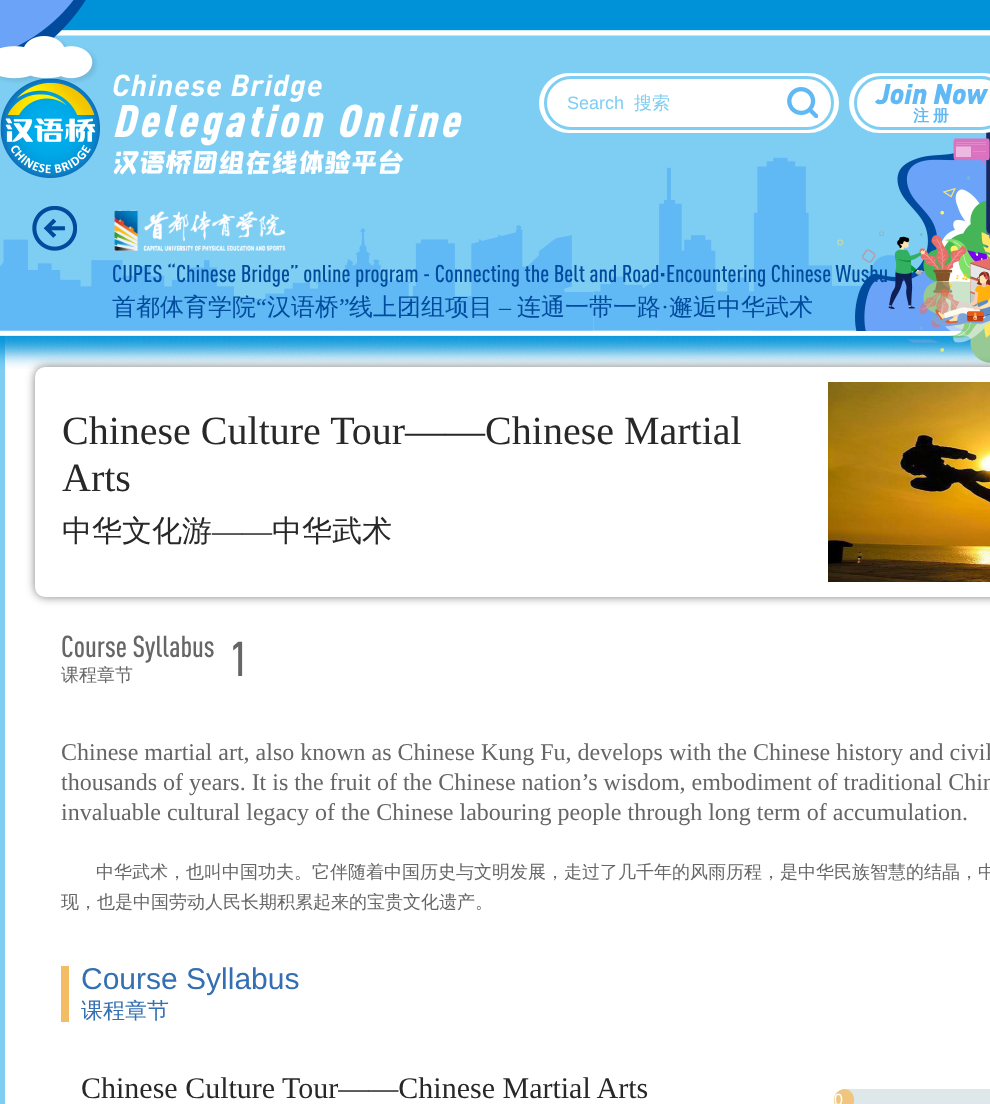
<svg xmlns="http://www.w3.org/2000/svg" width="990" height="1104" viewBox="0 0 990 1104">
  <rect width="100%" height="100%" fill="rgb(255,255,255)"/>
  <rect x="2.5" y="256.5" width="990" height="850" fill="none" stroke="rgb(126,206,244)" stroke-width="5"/>
  <image x="0" y="0" width="990" height="369" href="pic1.png"/>
  <text x="112" y="96" font-family="DIN" font-size="30" font-weight="bold" font-style="italic" letter-spacing="1" fill="rgb(255,255,255)">Chinese Bridge</text>
  <text x="112" y="137" font-family="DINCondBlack" font-size="45" font-weight="900" font-style="italic" letter-spacing="4" fill="rgb(255,255,255)">Delegation Online</text>
  <text x="112" y="170" font-family="'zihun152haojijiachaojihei'" font-size="27.5" letter-spacing="-1" fill="rgb(255,255,255)">汉语桥团组在线体验平台</text>
  <rect x="539" y="73" width="300" height="60" rx="30" fill="rgb(255,255,255)"/>
  <rect x="545.5" y="77.5" width="287" height="51" rx="25.5" fill="none" stroke="rgb(126,206,244)" stroke-width="3"/>
  <text x="567" y="109" font-family="Liberation Sans" font-size="18" fill="rgb(126,206,244)">Search</text>
  <text x="634" y="109" font-family="WenQuanYi Zen Hei" font-size="18" font-weight="500" fill="rgb(126,206,244)">搜索</text>
  <image x="787" y="87" width="31" height="31" href="pic2.png"/>
  <rect x="849" y="73" width="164" height="60" rx="30" fill="rgb(255,255,255)"/>
  <rect x="855.5" y="77.5" width="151" height="51" rx="25.5" fill="none" stroke="rgb(126,206,244)" stroke-width="3"/>
  <text x="876" y="104" font-family="DIN" font-size="28" font-weight="900" font-style="italic" fill="rgb(96,185,244)">Join Now</text>
  <text x="913" y="121" word-spacing="-1" font-family="WenQuanYi Zen Hei" font-size="16" font-weight="bold" fill="rgb(96,185,244)">注 册</text>
  <image x="32" y="206" width="45" height="45" href="pic3.png"/>
  <image x="114" y="210" width="172" height="41" href="pic4.png"/>
  <text x="112" y="282" font-family="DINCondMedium" font-size="24" font-weight="500" fill="rgb(0,75,157)">CUPES “Chinese Bridge” online program - Connecting the Belt and Road·Encountering Chinese Wushu</text>
  <text x="112" y="315" font-family="WenQuanYi Zen Hei" font-size="24" font-weight="500" fill="rgb(0,75,157)">首都体育学院</text>
  <text x="256" y="315" font-family="Liberation Serif" font-size="24" fill="rgb(0,75,157)">“</text>
  <text x="267" y="315" font-family="WenQuanYi Zen Hei" font-size="24" font-weight="500" fill="rgb(0,75,157)">汉语桥</text>
  <text x="339" y="315" font-family="Liberation Serif" font-size="24" fill="rgb(0,75,157)">”</text>
  <g font-family="WenQuanYi Zen Hei" font-size="24" font-weight="500" fill="rgb(0,75,157)">
    <text x="349" y="315">线上团组项目</text>
    <text x="517" y="315">连通一带一路</text>
    <text x="669" y="315">邂逅中华武术</text>
  </g>
  <g font-family="Liberation Serif" font-size="24" fill="rgb(0,75,157)">
    <text x="661" y="315">·</text>
    <text x="499" y="315">–</text>
  </g>
  <rect x="35" y="367" width="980" height="230" rx="10" fill="rgba(0,0,0,0.5)" filter="blur(5px)"/>
  <rect x="35" y="367" width="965" height="230" rx="10" fill="rgb(255,255,255)"/>
  <g font-family="Liberation Serif" font-size="40" fill="rgb(40,40,40)">
    <text>
      <tspan x="62" y="444">Chinese Culture Tour——Chinese Martial</tspan>
      <tspan x="62" y="491">Arts</tspan>
    </text>
  </g>
  <text x="62" y="541" font-family="WenQuanYi Zen Hei" font-size="30" font-weight="500" fill="rgb(40,40,40)">中华文化游</text>
  <text x="212" y="541" font-family="Liberation Serif" font-size="30" fill="rgb(40,40,40)">——</text>
  <text x="272" y="541" font-family="WenQuanYi Zen Hei" font-size="30" font-weight="500" fill="rgb(40,40,40)">中华武术</text>
  <image x="828" y="382" width="162" height="200" href="pic5.png"/>
  <text x="61" y="657" font-family="DINCondMedium" font-size="30" font-weight="500" fill="rgb(102,102,102)">Course Syllabus</text>
  <text x="61" y="681" font-family="WenQuanYi Zen Hei" font-size="18" font-weight="500" fill="rgb(102,102,102)">课程章节</text>
  <text x="230" y="676" font-family="DINCondMedium" font-size="48" font-weight="500" fill="rgb(102,102,102)">1</text>
  <g font-family="Liberation Serif" font-size="24" fill="rgb(102,102,102)">
    <text>
      <tspan x="61" y="760">Chinese martial art, also known as Chinese Kung Fu, develops with the Chinese history and civil</tspan>
      <tspan x="61" y="790">thousands of years. It is the fruit of the Chinese nation’s wisdom, embodiment of traditional Chin</tspan>
      <tspan x="61" y="820">invaluable cultural legacy of the Chinese labouring people through long term of accumulation.</tspan>
    </text>
  </g>
  <g font-family="WenQuanYi Zen Hei" font-size="18" font-weight="500" fill="rgb(102,102,102)">
    <text x="96" y="878">中华武术，也叫中国功夫。它伴随着中国历史与文明发展，走过了几千年的风雨历程，是中华民族智慧的结晶，中</text>
    <text x="61" y="908">现，也是中国劳动人民长期积累起来的宝贵文化遗产。</text>
  </g>
  <rect x="61" y="966" width="8" height="56" fill="rgb(243,188,101)"/>
  <text x="81" y="989" font-family="Liberation Sans" font-size="30" fill="rgb(51,111,177)">Course Syllabus</text>
  <text x="81" y="1018" font-family="WenQuanYi Zen Hei" font-size="22" font-weight="500" fill="rgb(51,111,177)">课程章节</text>
  <text x="81" y="1098" font-family="Liberation Serif" font-size="30" fill="rgb(40,40,40)">Chinese Culture Tour——Chinese Martial Arts</text>
  <rect x="834" y="1089" width="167" height="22" rx="11" fill="rgb(222,231,234)"/>
  <path d="M845 1089H844C849.5 1089 854 1093.5 854 1099V1101C854 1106.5 849.5 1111 844 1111H845C839 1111 834 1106 834 1100C834 1094 839 1089 845 1089Z" fill="rgb(239,197,128)"/>
  <text x="834" y="1105" font-family="Liberation Sans" font-size="16" fill="rgb(255,255,255)">0</text>
</svg>
